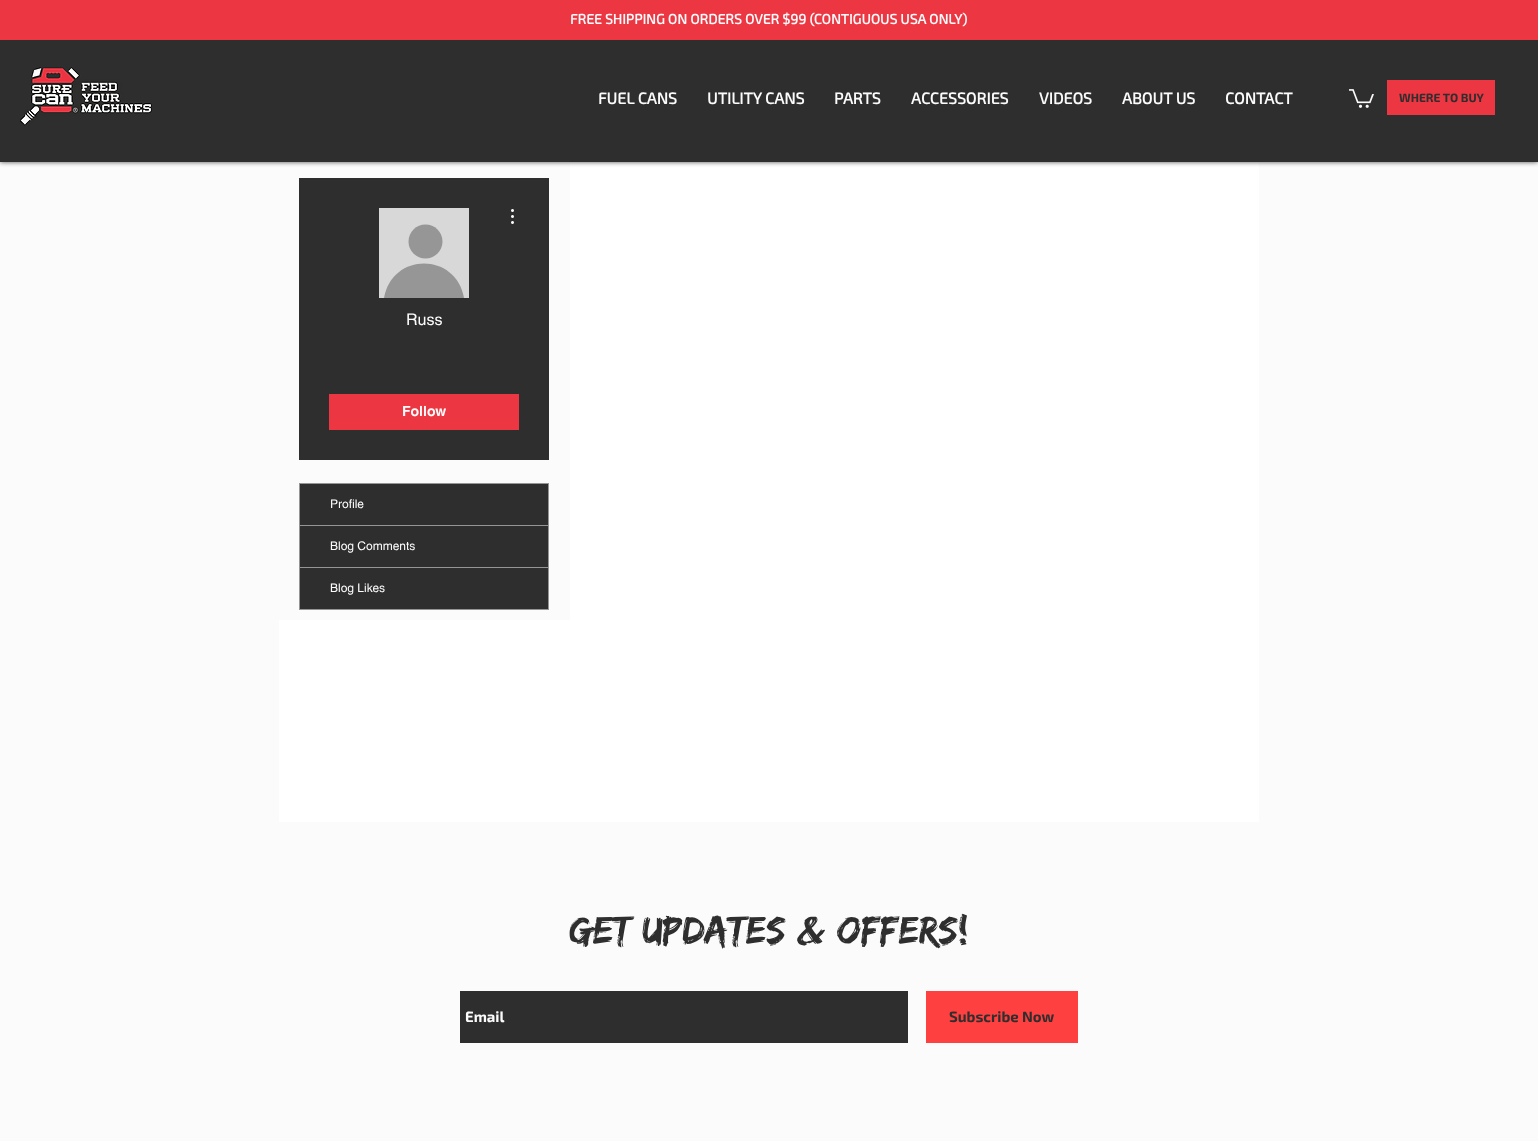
<svg xmlns="http://www.w3.org/2000/svg" width="1538" height="1141" viewBox="0 0 1538 1141">
  <rect width="100%" height="100%" fill="rgb(251,251,251)"/>
  <rect x="279" y="162" width="980" height="660" fill="rgb(255,255,255)"/>
  <rect x="279" y="162" width="291" height="458" fill="rgb(251,251,251)"/>
  <rect x="0" y="0" width="1538" height="162" fill="rgba(0,0,0,0.7)" filter="blur(2.5px)"/>
  <rect x="0" y="40" width="1538" height="122" fill="rgb(47,46,46)"/>
  <rect x="0" y="0" width="1538" height="40" fill="rgb(236,54,66)"/>
  <text x="570" y="24" font-family="'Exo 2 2'" font-size="14" font-weight="bold" fill="rgb(251,251,251)">FREE SHIPPING ON ORDERS OVER $99 (CONTIGUOUS USA ONLY)</text>
  <image x="20" y="67" width="132" height="59" href="pic1.png"/>
  <g font-family="'Exo 2 2'" font-size="16" font-weight="bold" fill="rgb(251,251,251)">
    <text x="598" y="104">FUEL CANS</text>
    <text x="707" y="104">UTILITY CANS</text>
    <text x="834" y="104">PARTS</text>
    <text x="911" y="104">ACCESSORIES</text>
    <text x="1039" y="104">VIDEOS</text>
    <text x="1122" y="104">ABOUT US</text>
    <text x="1225" y="104">CONTACT</text>
  </g>
  <image x="1349" y="89" width="25" height="19" href="pic2.png"/>
  <rect x="1387" y="80" width="108" height="35" fill="rgb(236,54,66)"/>
  <text x="1399" y="102" font-family="'Exo 2'" font-size="12" font-weight="bold" fill="rgb(47,46,46)">WHERE TO BUY</text>
  <rect x="299" y="178" width="250" height="282" fill="rgb(47,46,46)"/>
  <rect x="379" y="208" width="90" height="90" fill="rgb(216,216,216)"/>
  <circle cx="425.5" cy="241.5" r="17" fill="rgb(150,150,150)"/>
  <path d="M464 298C456 252 392 252 384 298Z" fill="rgb(150,150,150)"/>
  <image x="511" y="209" width="3" height="15" href="pic3.png"/>
  <text x="406" y="325" font-family="helvetica" font-size="16" fill="rgb(251,251,251)">Russ</text>
  <rect x="329" y="394" width="190" height="36" fill="rgb(236,54,66)"/>
  <text x="402" y="416" font-family="helvetica" font-size="14" font-weight="bold" fill="rgb(251,251,251)">Follow</text>
  <rect x="299.5" y="483.5" width="249" height="126" fill="none" stroke="rgb(149,149,149)"/>
  <rect x="300" y="525" width="248" height="1" fill="rgb(149,149,149)"/>
  <rect x="300" y="484" width="248" height="41" fill="rgb(47,46,46)"/>
  <text x="330" y="508" font-family="helvetica" font-size="12" fill="rgb(251,251,251)">Profile</text>
  <rect x="300" y="567" width="248" height="1" fill="rgb(149,149,149)"/>
  <rect x="300" y="526" width="248" height="41" fill="rgb(47,46,46)"/>
  <text x="330" y="550" font-family="helvetica" font-size="12" fill="rgb(251,251,251)">Blog Comments</text>
  <rect x="300" y="568" width="248" height="41" fill="rgb(47,46,46)"/>
  <text x="330" y="592" font-family="helvetica" font-size="12" fill="rgb(251,251,251)">Blog Likes</text>
  <text x="569" y="943" font-family="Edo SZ" font-size="40" fill="rgb(47,46,46)">Get UPDATES &amp; OFFERS!</text>
  <rect x="460" y="991" width="448" height="52" fill="rgb(47,46,46)"/>
  <text x="465" y="1022" font-family="'Exo 2'" font-size="15" font-weight="bold" fill="rgb(251,251,251)">Email</text>
  <rect x="926" y="991" width="152" height="52" fill="rgb(255,64,64)"/>
  <text x="949" y="1022" font-family="'Exo 2'" font-size="15" font-weight="bold" fill="rgb(47,46,46)">Subscribe Now</text>
</svg>
